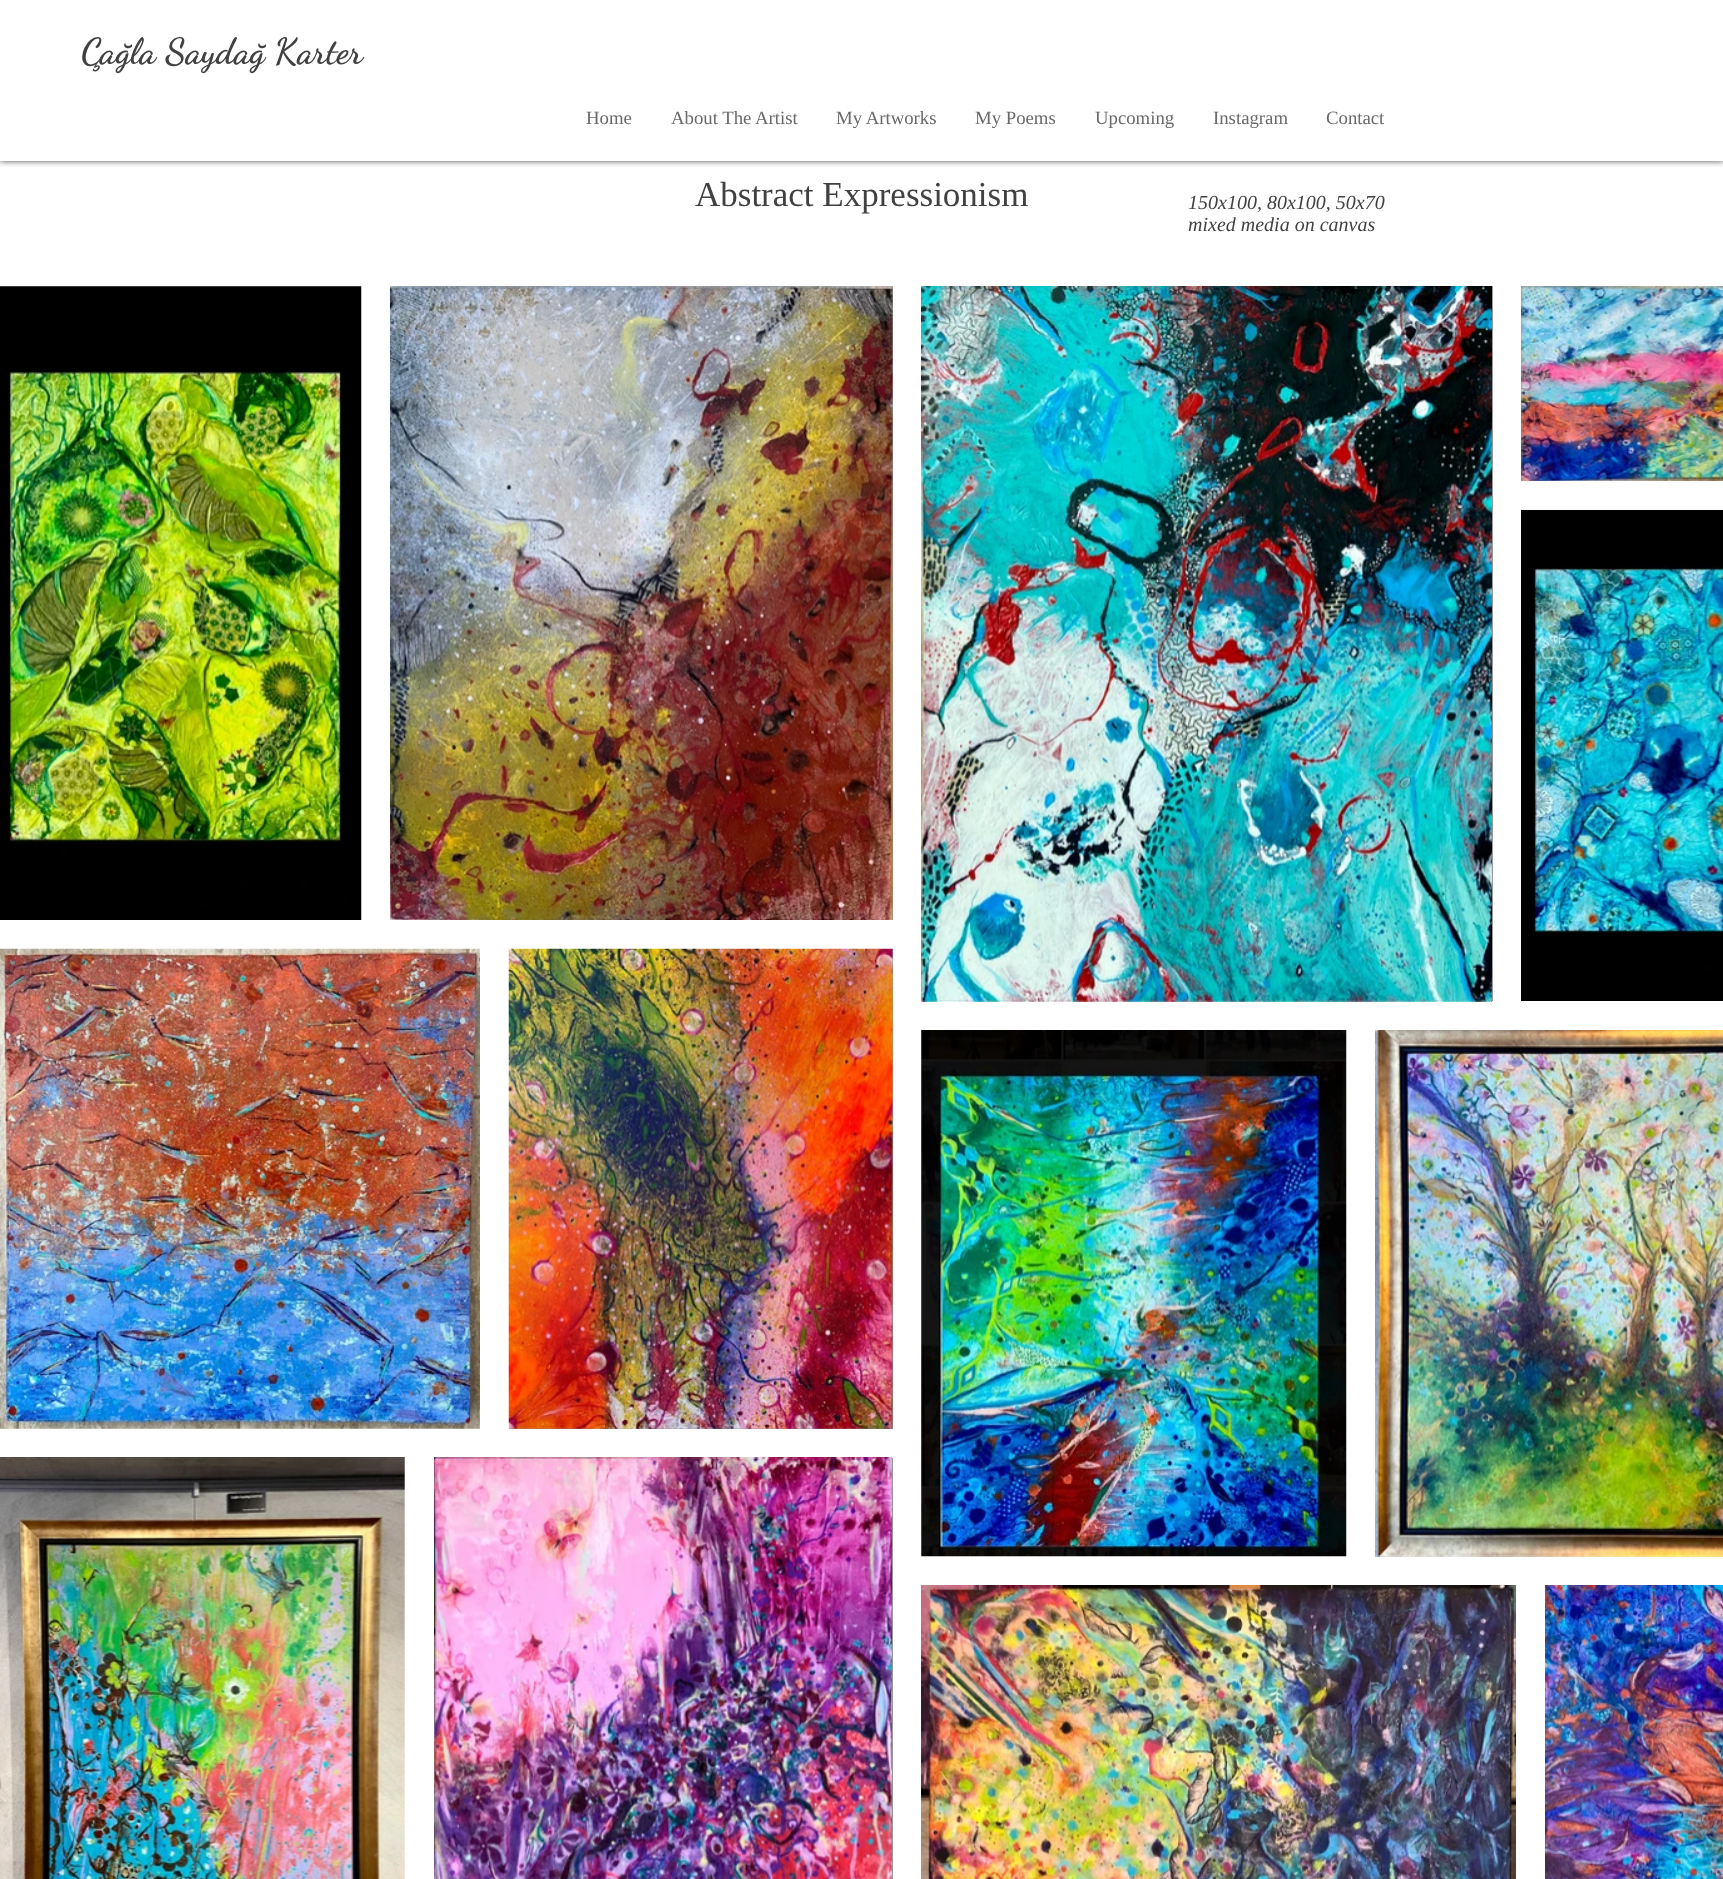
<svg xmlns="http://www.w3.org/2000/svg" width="1723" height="1879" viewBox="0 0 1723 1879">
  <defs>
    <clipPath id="clip1"><rect x="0" y="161" width="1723" height="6"/></clipPath>
  </defs>
  <rect width="100%" height="100%" fill="rgb(255,255,255)"/>
  <g clip-path="url(#clip1)">
    <rect x="0" y="0" width="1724" height="161" fill="rgba(0,0,0,0.7)" filter="blur(3px)"/>
  </g>
  <text x="81" y="63" font-family="Dancing Script" font-size="36.25" font-weight="bold" fill="rgb(65,65,65)">Çağla Saydağ Karter</text>
  <g font-family="Liberation Serif" font-size="18.75" fill="rgb(105,105,105)">
    <text x="586" y="124">Home</text>
    <text x="671" y="124">About The Artist</text>
    <text x="836" y="124">My Artworks</text>
    <text x="975" y="124">My Poems</text>
    <text x="1095" y="124">Upcoming</text>
    <text x="1213" y="124">Instagram</text>
    <text x="1326" y="124">Contact</text>
  </g>
  <text x="695" y="206" font-family="Liberation Serif" font-size="35" fill="rgb(65,65,65)">Abstract Expressionism</text>
  <g font-family="Liberation Serif" font-size="20" font-style="italic" fill="rgb(65,65,65)">
    <text>
      <tspan x="1188" y="209">150x100, 80x100, 50x70</tspan>
      <tspan x="1188" y="231">mixed media on canvas</tspan>
    </text>
  </g>
  <image x="0" y="286" width="362" height="634" href="pic1.png"/>
  <rect x="390" y="286" width="503" height="634" fill="rgb(153,153,153)"/>
  <image x="390" y="286" width="503" height="634" href="pic2.png"/>
  <rect x="921" y="286" width="572" height="715" fill="rgb(153,153,153)"/>
  <image x="921" y="286" width="571" height="716" href="pic3.png"/>
  <image x="1521" y="286" width="202" height="195" href="pic4.png"/>
  <image x="1521" y="510" width="202" height="491" href="pic5.png"/>
  <image x="0" y="948" width="480" height="481" href="pic6.png"/>
  <rect x="509" y="949" width="384" height="480" fill="rgb(153,153,153)"/>
  <image x="508" y="948" width="385" height="481" href="pic7.png"/>
  <image x="921" y="1030" width="426" height="527" href="pic8.png"/>
  <image x="1375" y="1030" width="348" height="527" href="pic9.png"/>
  <image x="0" y="1457" width="405" height="422" href="pic10.png"/>
  <rect x="892" y="1458" width="1" height="421" fill="rgb(153,153,153)"/>
  <image x="434" y="1457" width="458" height="422" href="pic11.png"/>
  <image x="921" y="1585" width="595" height="294" href="pic12.png"/>
  <image x="1545" y="1585" width="178" height="294" href="pic13.png"/>
</svg>
